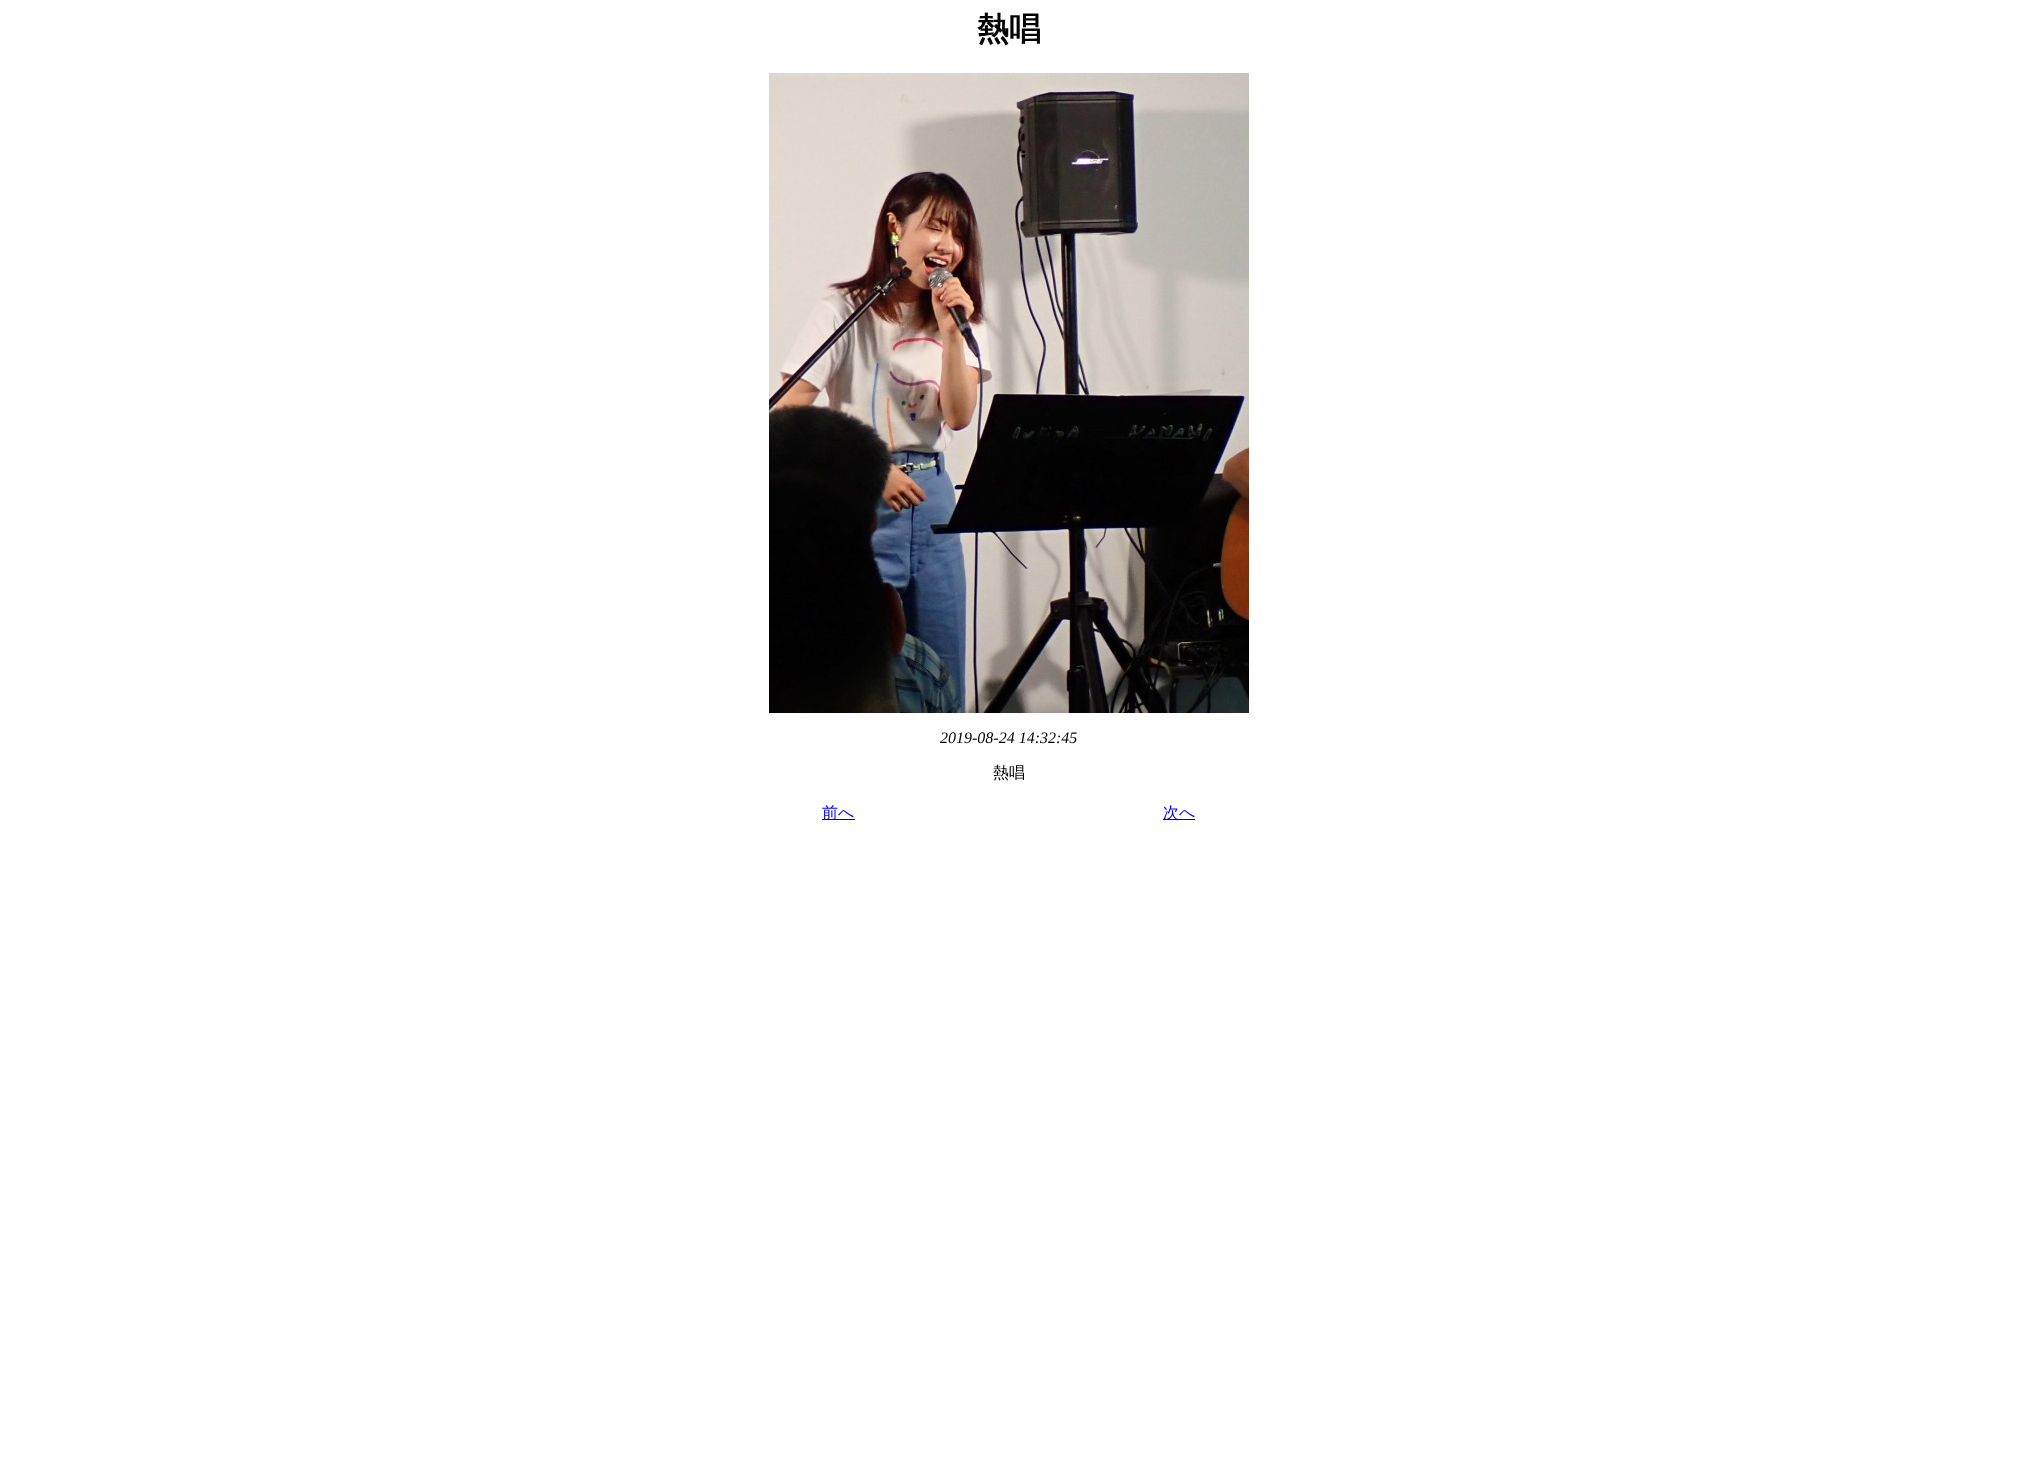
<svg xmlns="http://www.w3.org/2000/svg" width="2017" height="1470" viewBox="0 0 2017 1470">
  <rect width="100%" height="100%" fill="rgb(255,255,255)"/>
  <text x="977" y="40" font-family="WenQuanYi Zen Hei" font-size="32" font-weight="bold" fill="rgb(0,0,0)">熱唱</text>
  <image x="769" y="73" width="480" height="640" href="pic1.png"/>
  <text x="940" y="743" font-family="Liberation Serif" font-size="16" font-style="italic" fill="rgb(0,0,0)">2019-08-24 14:32:45</text>
  <text x="993" y="778" font-family="WenQuanYi Zen Hei" font-size="16" font-weight="500" fill="rgb(0,0,0)">熱唱</text>
  <rect x="822" y="819" width="33" height="1" fill="rgb(0,0,238)"/>
  <text x="822" y="818" font-family="WenQuanYi Zen Hei" font-size="16" font-weight="500" fill="rgb(0,0,238)">前へ</text>
  <rect x="1163" y="819" width="32" height="1" fill="rgb(0,0,238)"/>
  <text x="1163" y="818" font-family="WenQuanYi Zen Hei" font-size="16" font-weight="500" fill="rgb(0,0,238)">次へ</text>
</svg>
